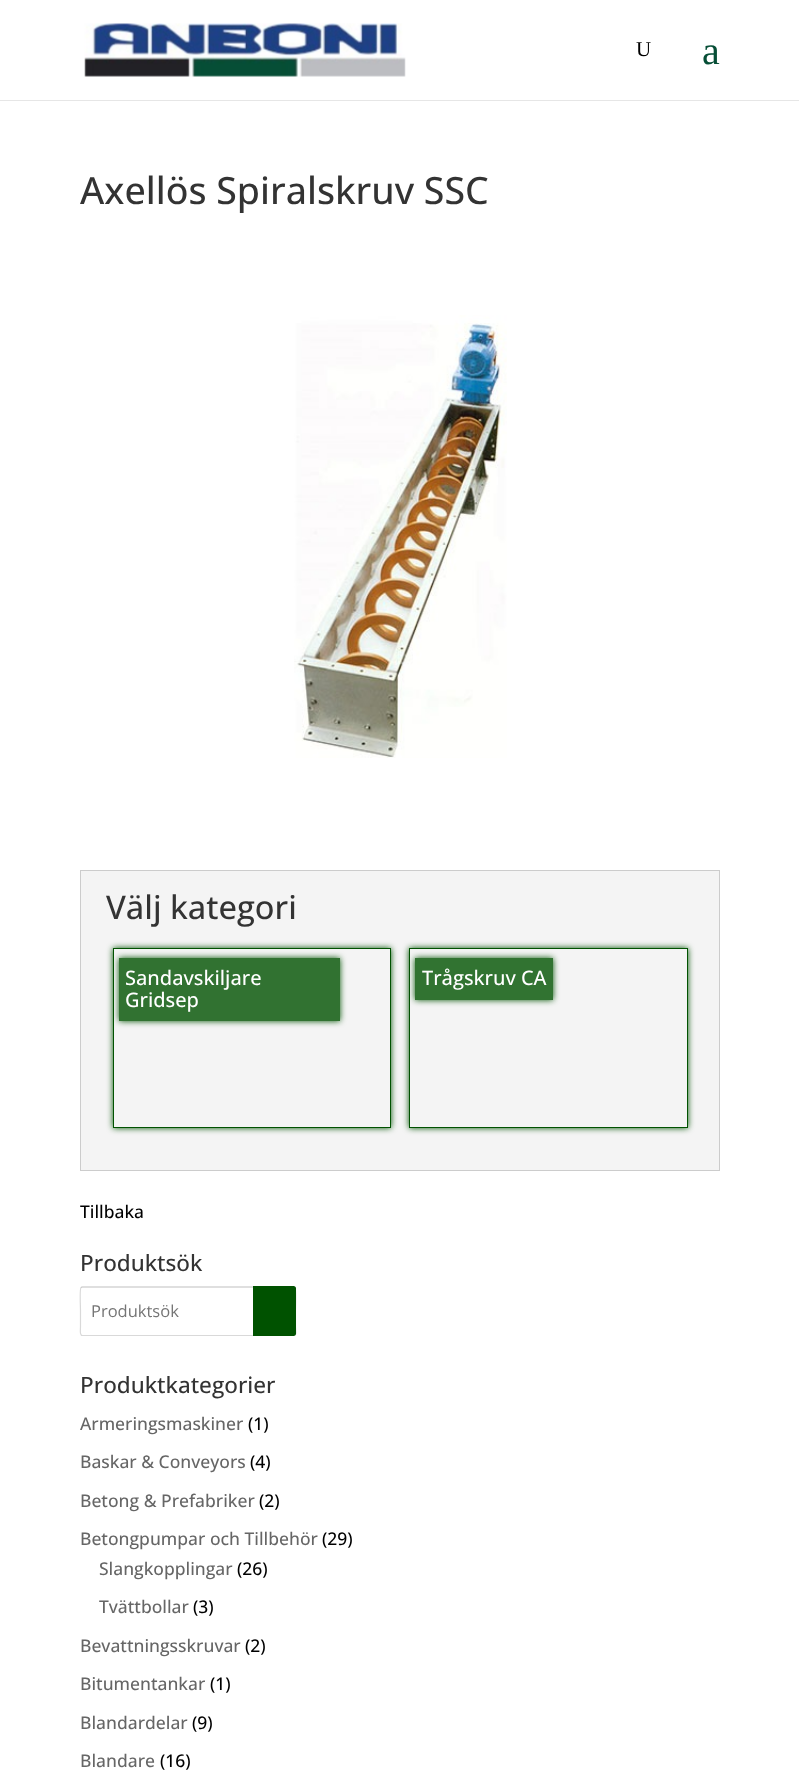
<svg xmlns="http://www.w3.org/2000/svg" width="799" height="1781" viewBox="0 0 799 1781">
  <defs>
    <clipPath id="clip1"><path d="M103 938H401V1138H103ZM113 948H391V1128H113Z" clip-rule="evenodd"/></clipPath>
    <clipPath id="clip2"><path d="M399 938H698V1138H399ZM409 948H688V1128H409Z" clip-rule="evenodd"/></clipPath>
    <clipPath id="clip3"><path d="M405 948H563V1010H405ZM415 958H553V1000H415Z" clip-rule="evenodd"/></clipPath>
  </defs>
  <rect width="100%" height="100%" fill="rgb(255,255,255)"/>
  <rect x="0" y="100" width="799" height="1" fill="rgb(230,230,230)"/>
  <image x="84" y="23" width="322" height="54" href="pic1.png"/>
  <text x="636" y="56" font-family="Liberation Serif" font-size="21" fill="rgb(0,0,0)">U</text>
  <text x="702" y="64" font-family="Liberation Serif" font-size="40" fill="rgb(6,78,54)">a</text>
  <text x="80" y="204" font-family="Open Sans" font-size="37.5" font-weight="500" fill="rgb(51,51,51)">Axellös Spiralskruv SSC</text>
  <image x="294" y="315" width="213" height="443" href="pic2.png"/>
  <rect x="80.5" y="870.5" width="639" height="300" fill="rgb(244,244,244)" stroke="rgb(204,204,204)"/>
  <text x="106" y="919" font-family="Open Sans" font-size="32.5" font-weight="500" fill="rgb(51,51,51)">Välj kategori</text>
  <g clip-path="url(#clip1)">
    <rect x="113" y="948" width="278" height="180" fill="rgb(0,82,0)" filter="blur(3px)"/>
  </g>
  <rect x="113.5" y="948.5" width="277" height="179" fill="none" stroke="rgb(0,82,0)"/>
  <rect x="119" y="958" width="221" height="63" fill="rgb(0,82,0)" filter="blur(3px)"/>
  <rect x="119" y="958" width="221" height="63" fill="rgb(49,114,49)"/>
  <g font-family="Open Sans" font-size="20" font-weight="500" fill="rgb(255,255,255)">
    <text>
      <tspan x="125" y="985">Sandavskiljare</tspan>
      <tspan x="125" y="1007">Gridsep</tspan>
    </text>
  </g>
  <g clip-path="url(#clip2)">
    <rect x="409" y="948" width="279" height="180" fill="rgb(0,82,0)" filter="blur(3px)"/>
  </g>
  <rect x="409.5" y="948.5" width="278" height="179" fill="none" stroke="rgb(0,82,0)"/>
  <g clip-path="url(#clip3)">
    <rect x="415" y="958" width="138" height="42" fill="rgb(0,82,0)" filter="blur(3px)"/>
  </g>
  <rect x="415" y="958" width="138" height="42" fill="rgba(0,82,0,0.8)"/>
  <text x="422" y="985" font-family="Open Sans" font-size="20" font-weight="500" fill="rgb(255,255,255)">Trågskruv CA</text>
  <text x="80" y="1218" font-family="Open Sans" font-size="17.5" font-weight="500" fill="rgb(0,0,0)">Tillbaka</text>
  <text x="80" y="1271" font-family="Open Sans" font-size="22.5" font-weight="500" fill="rgb(51,51,51)">Produktsök</text>
  <path d="M81 1287.5L82 1287H153H294L295 1287.5" fill="none" stroke="rgb(192,192,192)" stroke-width="1.2"/>
  <path d="M295 1287.5C296.5 1289 295.5 1308 295.5 1311V1326C295.5 1330 297 1335.5 294 1335.5H82.5C79.5 1335.5 80.5 1330 80.5 1326V1311C80.5 1308 79.5 1289 81 1287.5" fill="none" stroke="rgb(217,217,217)" stroke-width="1.2"/>
  <text x="91" y="1317" font-family="Open Sans" font-size="16.5" fill="rgb(117,117,117)">Produktsök</text>
  <path d="M253 1286H293.5C295 1286 296 1287 296 1288.5V1333.5C296 1335 295 1336 293.5 1336H253Z" fill="rgb(0,82,0)"/>
  <text x="80" y="1393" font-family="Open Sans" font-size="22.5" font-weight="500" fill="rgb(51,51,51)">Produktkategorier</text>
  <text x="80" y="1430" font-family="Open Sans" font-size="17.5" font-weight="500" fill="rgb(102,102,102)">Armeringsmaskiner</text>
  <text x="248" y="1430" font-family="Open Sans" font-size="17.5" font-weight="500" fill="rgb(0,0,0)">(1)</text>
  <text x="80" y="1468" font-family="Open Sans" font-size="17.5" font-weight="500" fill="rgb(102,102,102)">Baskar &amp; Conveyors</text>
  <text x="250" y="1468" font-family="Open Sans" font-size="17.5" font-weight="500" fill="rgb(0,0,0)">(4)</text>
  <text x="80" y="1507" font-family="Open Sans" font-size="17.5" font-weight="500" fill="rgb(102,102,102)">Betong &amp; Prefabriker</text>
  <text x="259" y="1507" font-family="Open Sans" font-size="17.5" font-weight="500" fill="rgb(0,0,0)">(2)</text>
  <text x="80" y="1545" font-family="Open Sans" font-size="17.5" font-weight="500" fill="rgb(102,102,102)">Betongpumpar och Tillbehör</text>
  <text x="322" y="1545" font-family="Open Sans" font-size="17.5" font-weight="500" fill="rgb(0,0,0)">(29)</text>
  <text x="99" y="1575" font-family="Open Sans" font-size="17.5" font-weight="500" fill="rgb(102,102,102)">Slangkopplingar</text>
  <text x="237" y="1575" font-family="Open Sans" font-size="17.5" font-weight="500" fill="rgb(0,0,0)">(26)</text>
  <text x="99" y="1613" font-family="Open Sans" font-size="17.5" font-weight="500" fill="rgb(102,102,102)">Tvättbollar</text>
  <text x="193" y="1613" font-family="Open Sans" font-size="17.5" font-weight="500" fill="rgb(0,0,0)">(3)</text>
  <text x="80" y="1652" font-family="Open Sans" font-size="17.5" font-weight="500" fill="rgb(102,102,102)">Bevattningsskruvar</text>
  <text x="245" y="1652" font-family="Open Sans" font-size="17.5" font-weight="500" fill="rgb(0,0,0)">(2)</text>
  <text x="80" y="1690" font-family="Open Sans" font-size="17.5" font-weight="500" fill="rgb(102,102,102)">Bitumentankar</text>
  <text x="210" y="1690" font-family="Open Sans" font-size="17.5" font-weight="500" fill="rgb(0,0,0)">(1)</text>
  <text x="80" y="1729" font-family="Open Sans" font-size="17.5" font-weight="500" fill="rgb(102,102,102)">Blandardelar</text>
  <text x="192" y="1729" font-family="Open Sans" font-size="17.5" font-weight="500" fill="rgb(0,0,0)">(9)</text>
  <text x="80" y="1767" font-family="Open Sans" font-size="17.5" font-weight="500" fill="rgb(102,102,102)">Blandare</text>
  <text x="160" y="1767" font-family="Open Sans" font-size="17.5" font-weight="500" fill="rgb(0,0,0)">(16)</text>
</svg>
